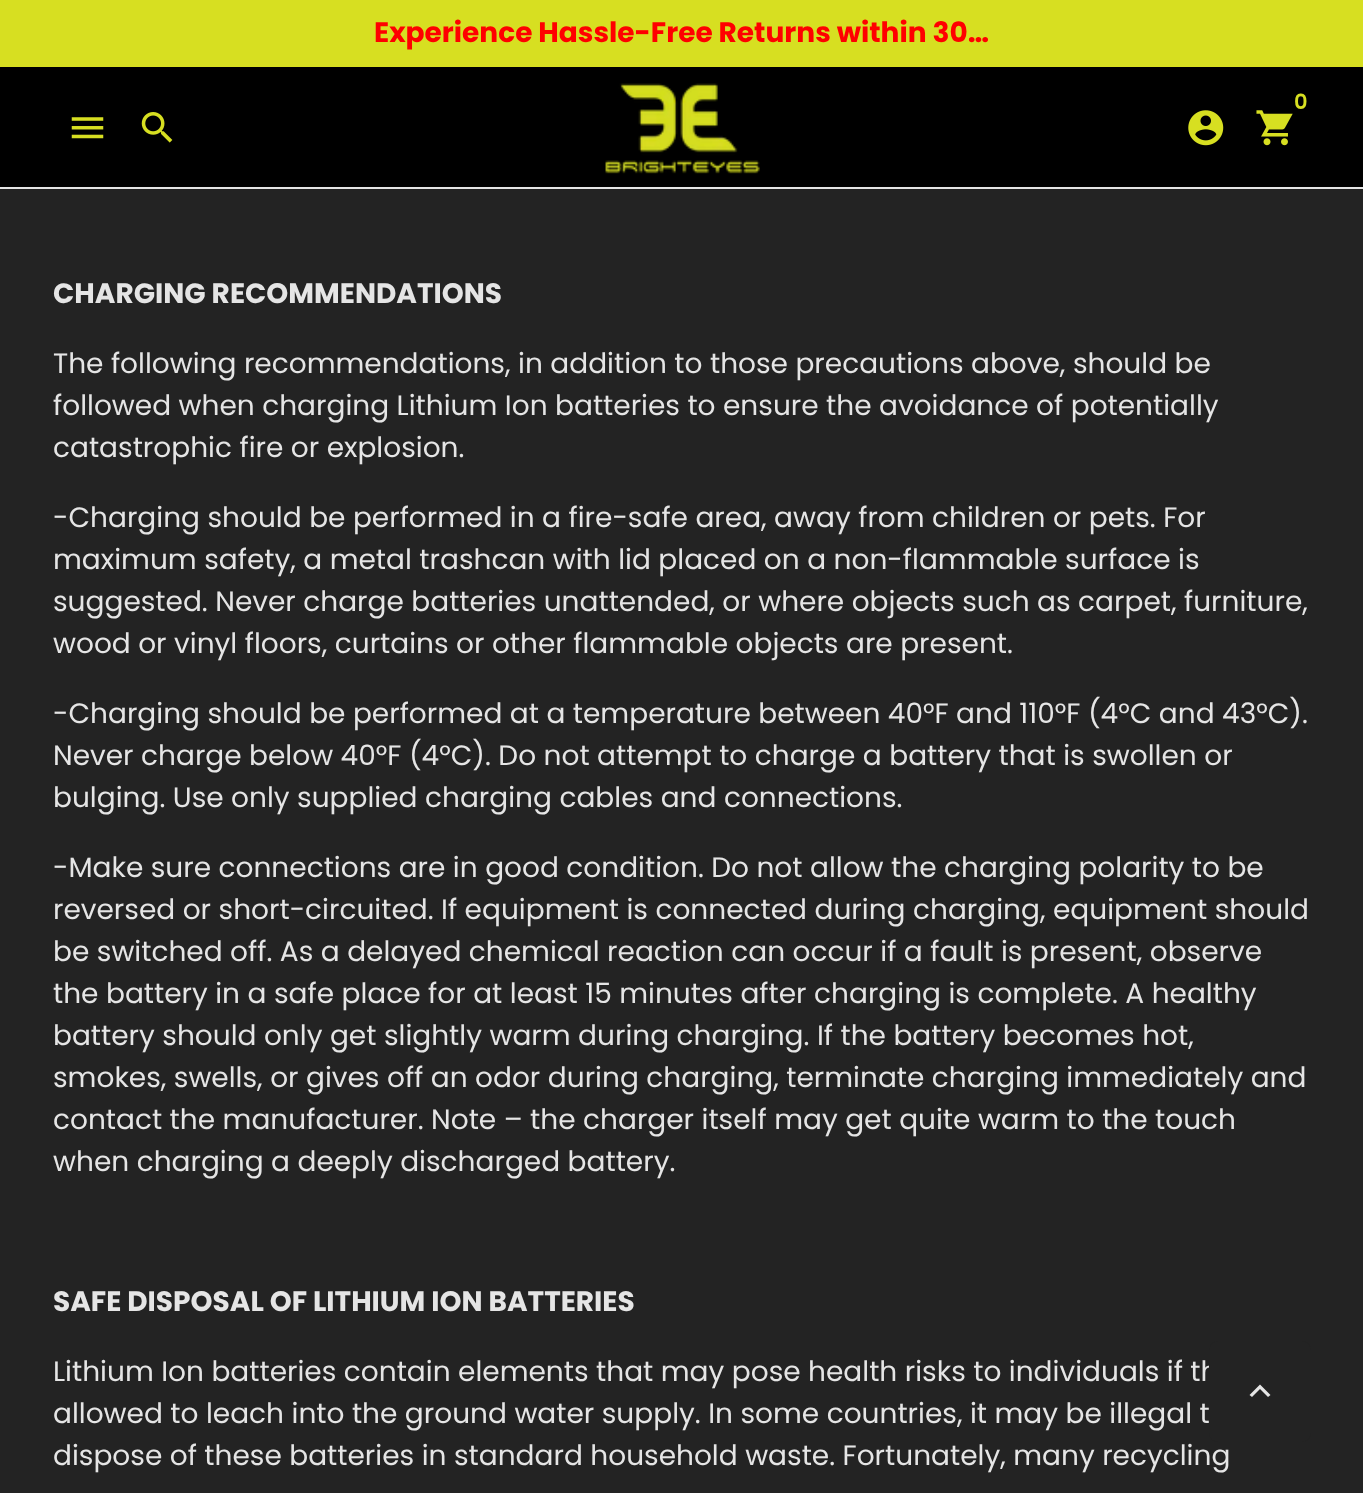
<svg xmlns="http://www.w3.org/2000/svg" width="1363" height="1493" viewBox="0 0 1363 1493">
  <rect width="100%" height="100%" fill="rgb(35,35,35)"/>
  <rect x="0" y="0" width="1363" height="67" fill="rgb(215,223,33)"/>
  <text x="374" y="42" font-family="Poppins" font-size="28" font-weight="bold" fill="rgb(255,0,0)">Experience Hassle-Free Returns within 30…</text>
  <rect x="0" y="67" width="1363" height="120" fill="rgb(0,0,0)"/>
  <rect x="0" y="187" width="1363" height="2" fill="rgb(229,229,229)"/>
  <image x="605" y="83" width="155" height="91" href="pic1.png"/>
  <text x="1294" y="109" font-family="Poppins" font-size="21" font-weight="600" fill="rgb(215,223,33)">0</text>
  <image x="1256" y="110" width="37" height="36" href="pic2.png"/>
  <image x="1188" y="110" width="36" height="36" href="pic3.png"/>
  <image x="71" y="117" width="33" height="22" href="pic4.png"/>
  <image x="141" y="112" width="32" height="31" href="pic5.png"/>
  <text x="53" y="303" font-family="Poppins" font-size="28" font-weight="bold" fill="rgb(229,229,229)">CHARGING RECOMMENDATIONS</text>
  <g font-family="Poppins" font-size="28" fill="rgb(229,229,229)">
    <text>
      <tspan x="53" y="373">The following recommendations, in addition to those precautions above, should be</tspan>
      <tspan x="53" y="415">followed when charging Lithium Ion batteries to ensure the avoidance of potentially</tspan>
      <tspan x="53" y="457">catastrophic fire or explosion.</tspan>
    </text>
    <text>
      <tspan x="53" y="527">-Charging should be performed in a fire-safe area, away from children or pets. For</tspan>
      <tspan x="53" y="569">maximum safety, a metal trashcan with lid placed on a non-flammable surface is</tspan>
      <tspan x="53" y="611">suggested. Never charge batteries unattended, or where objects such as carpet, furniture,</tspan>
      <tspan x="53" y="653">wood or vinyl floors, curtains or other flammable objects are present.</tspan>
    </text>
    <text>
      <tspan x="53" y="723">-Charging should be performed at a temperature between 40°F and 110°F (4°C and 43°C).</tspan>
      <tspan x="53" y="765">Never charge below 40°F (4°C). Do not attempt to charge a battery that is swollen or</tspan>
      <tspan x="53" y="807">bulging. Use only supplied charging cables and connections.</tspan>
    </text>
    <text>
      <tspan x="53" y="877">-Make sure connections are in good condition. Do not allow the charging polarity to be</tspan>
      <tspan x="53" y="919">reversed or short-circuited. If equipment is connected during charging, equipment should</tspan>
      <tspan x="53" y="961">be switched off. As a delayed chemical reaction can occur if a fault is present, observe</tspan>
      <tspan x="53" y="1003">the battery in a safe place for at least 15 minutes after charging is complete. A healthy</tspan>
      <tspan x="53" y="1045">battery should only get slightly warm during charging. If the battery becomes hot,</tspan>
      <tspan x="53" y="1087">smokes, swells, or gives off an odor during charging, terminate charging immediately and</tspan>
      <tspan x="53" y="1129">contact the manufacturer. Note – the charger itself may get quite warm to the touch</tspan>
      <tspan x="53" y="1171">when charging a deeply discharged battery.</tspan>
    </text>
  </g>
  <text x="53" y="1311" font-family="Poppins" font-size="28" font-weight="bold" fill="rgb(229,229,229)">SAFE DISPOSAL OF LITHIUM ION BATTERIES</text>
  <g font-family="Poppins" font-size="28" fill="rgb(229,229,229)">
    <text>
      <tspan x="53" y="1381">Lithium Ion batteries contain elements that may pose health risks to individuals if th</tspan>
      <tspan x="53" y="1423">allowed to leach into the ground water supply. In some countries, it may be illegal t</tspan>
      <tspan x="53" y="1465">dispose of these batteries in standard household waste. Fortunately, many recycling</tspan>
    </text>
  </g>
  <rect x="1209" y="1341" width="102" height="101" rx="9" fill="rgb(35,35,35)"/>
  <path d="M1252 1397L1260 1389L1268 1397L1270.5 1395L1260 1384.5L1249.5 1395Z" fill="rgb(229,229,229)"/>
</svg>
